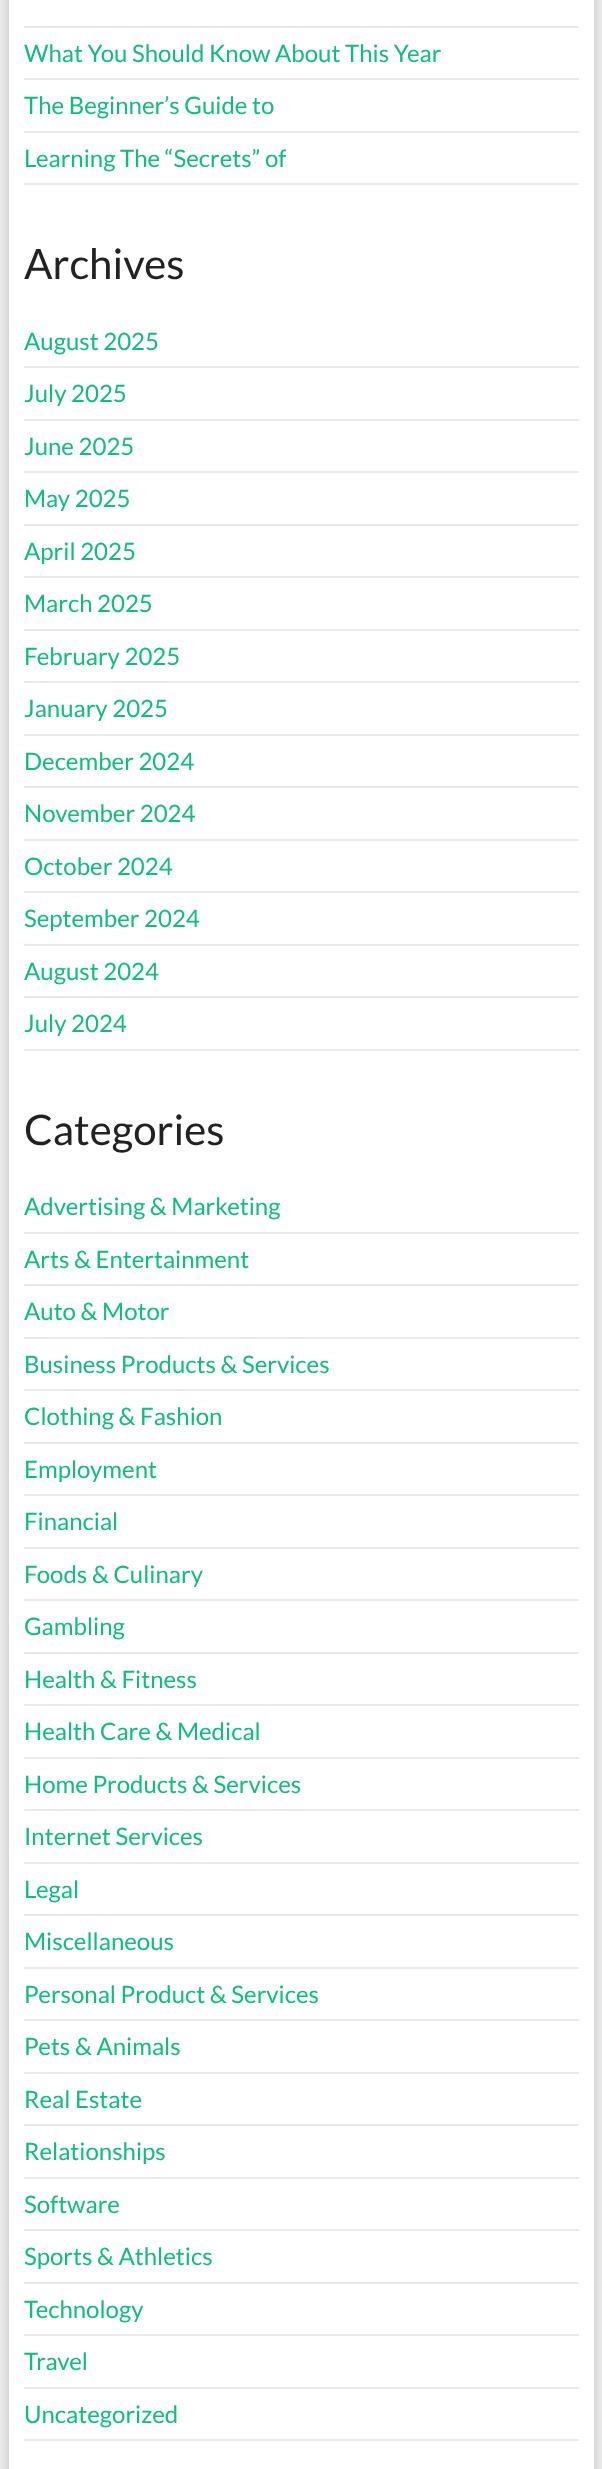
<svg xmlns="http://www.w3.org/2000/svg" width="602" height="2469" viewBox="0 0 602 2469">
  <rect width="100%" height="100%" fill="rgb(234,234,234)"/>
  <rect x="9" y="-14" width="585" height="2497" fill="rgba(100,100,100,0.3)" filter="blur(4.5px)"/>
  <rect x="9" y="0" width="585" height="2469" fill="rgb(255,255,255)"/>
  <rect x="24" y="26" width="555" height="2" fill="rgb(234,234,234)"/>
  <rect x="24" y="78" width="555" height="2" fill="rgb(234,234,234)"/>
  <text x="24" y="62" font-family="Lato" font-size="24" fill="rgb(15,190,124)">What You Should Know About This Year</text>
  <rect x="24" y="131" width="555" height="2" fill="rgb(234,234,234)"/>
  <text x="24" y="114" font-family="Lato" font-size="24" fill="rgb(15,190,124)">The Beginner’s Guide to</text>
  <rect x="24" y="183" width="555" height="2" fill="rgb(234,234,234)"/>
  <text x="24" y="167" font-family="Lato" font-size="24" fill="rgb(15,190,124)">Learning The “Secrets” of</text>
  <text x="24" y="279" font-family="Lato" font-size="42" fill="rgb(34,34,34)">Archives</text>
  <rect x="24" y="366" width="555" height="2" fill="rgb(234,234,234)"/>
  <text x="24" y="350" font-family="Lato" font-size="24" fill="rgb(15,190,124)">August 2025</text>
  <rect x="24" y="419" width="555" height="2" fill="rgb(234,234,234)"/>
  <text x="24" y="402" font-family="Lato" font-size="24" fill="rgb(15,190,124)">July 2025</text>
  <rect x="24" y="471" width="555" height="2" fill="rgb(234,234,234)"/>
  <text x="24" y="455" font-family="Lato" font-size="24" fill="rgb(15,190,124)">June 2025</text>
  <rect x="24" y="524" width="555" height="2" fill="rgb(234,234,234)"/>
  <text x="24" y="507" font-family="Lato" font-size="24" fill="rgb(15,190,124)">May 2025</text>
  <rect x="24" y="576" width="555" height="2" fill="rgb(234,234,234)"/>
  <text x="24" y="560" font-family="Lato" font-size="24" fill="rgb(15,190,124)">April 2025</text>
  <rect x="24" y="629" width="555" height="2" fill="rgb(234,234,234)"/>
  <text x="24" y="612" font-family="Lato" font-size="24" fill="rgb(15,190,124)">March 2025</text>
  <rect x="24" y="681" width="555" height="2" fill="rgb(234,234,234)"/>
  <text x="24" y="665" font-family="Lato" font-size="24" fill="rgb(15,190,124)">February 2025</text>
  <rect x="24" y="734" width="555" height="2" fill="rgb(234,234,234)"/>
  <text x="24" y="717" font-family="Lato" font-size="24" fill="rgb(15,190,124)">January 2025</text>
  <rect x="24" y="786" width="555" height="2" fill="rgb(234,234,234)"/>
  <text x="24" y="770" font-family="Lato" font-size="24" fill="rgb(15,190,124)">December 2024</text>
  <rect x="24" y="839" width="555" height="2" fill="rgb(234,234,234)"/>
  <text x="24" y="822" font-family="Lato" font-size="24" fill="rgb(15,190,124)">November 2024</text>
  <rect x="24" y="891" width="555" height="2" fill="rgb(234,234,234)"/>
  <text x="24" y="875" font-family="Lato" font-size="24" fill="rgb(15,190,124)">October 2024</text>
  <rect x="24" y="944" width="555" height="2" fill="rgb(234,234,234)"/>
  <text x="24" y="927" font-family="Lato" font-size="24" fill="rgb(15,190,124)">September 2024</text>
  <rect x="24" y="996" width="555" height="2" fill="rgb(234,234,234)"/>
  <text x="24" y="980" font-family="Lato" font-size="24" fill="rgb(15,190,124)">August 2024</text>
  <rect x="24" y="1049" width="555" height="2" fill="rgb(234,234,234)"/>
  <text x="24" y="1032" font-family="Lato" font-size="24" fill="rgb(15,190,124)">July 2024</text>
  <text x="24" y="1145" font-family="Lato" font-size="42" fill="rgb(34,34,34)">Categories</text>
  <rect x="24" y="1232" width="555" height="2" fill="rgb(234,234,234)"/>
  <text x="24" y="1215" font-family="Lato" font-size="24" fill="rgb(15,190,124)">Advertising &amp; Marketing</text>
  <rect x="24" y="1284" width="555" height="2" fill="rgb(234,234,234)"/>
  <text x="24" y="1268" font-family="Lato" font-size="24" fill="rgb(15,190,124)">Arts &amp; Entertainment</text>
  <rect x="24" y="1337" width="555" height="2" fill="rgb(234,234,234)"/>
  <text x="24" y="1320" font-family="Lato" font-size="24" fill="rgb(15,190,124)">Auto &amp; Motor</text>
  <rect x="24" y="1389" width="555" height="2" fill="rgb(234,234,234)"/>
  <text x="24" y="1373" font-family="Lato" font-size="24" fill="rgb(15,190,124)">Business Products &amp; Services</text>
  <rect x="24" y="1442" width="555" height="2" fill="rgb(234,234,234)"/>
  <text x="24" y="1425" font-family="Lato" font-size="24" fill="rgb(15,190,124)">Clothing &amp; Fashion</text>
  <rect x="24" y="1494" width="555" height="2" fill="rgb(234,234,234)"/>
  <text x="24" y="1478" font-family="Lato" font-size="24" fill="rgb(15,190,124)">Employment</text>
  <rect x="24" y="1547" width="555" height="2" fill="rgb(234,234,234)"/>
  <text x="24" y="1530" font-family="Lato" font-size="24" fill="rgb(15,190,124)">Financial</text>
  <rect x="24" y="1599" width="555" height="2" fill="rgb(234,234,234)"/>
  <text x="24" y="1583" font-family="Lato" font-size="24" fill="rgb(15,190,124)">Foods &amp; Culinary</text>
  <rect x="24" y="1652" width="555" height="2" fill="rgb(234,234,234)"/>
  <text x="24" y="1635" font-family="Lato" font-size="24" fill="rgb(15,190,124)">Gambling</text>
  <rect x="24" y="1704" width="555" height="2" fill="rgb(234,234,234)"/>
  <text x="24" y="1688" font-family="Lato" font-size="24" fill="rgb(15,190,124)">Health &amp; Fitness</text>
  <rect x="24" y="1757" width="555" height="2" fill="rgb(234,234,234)"/>
  <text x="24" y="1740" font-family="Lato" font-size="24" fill="rgb(15,190,124)">Health Care &amp; Medical</text>
  <rect x="24" y="1809" width="555" height="2" fill="rgb(234,234,234)"/>
  <text x="24" y="1793" font-family="Lato" font-size="24" fill="rgb(15,190,124)">Home Products &amp; Services</text>
  <rect x="24" y="1862" width="555" height="2" fill="rgb(234,234,234)"/>
  <text x="24" y="1845" font-family="Lato" font-size="24" fill="rgb(15,190,124)">Internet Services</text>
  <rect x="24" y="1914" width="555" height="2" fill="rgb(234,234,234)"/>
  <text x="24" y="1898" font-family="Lato" font-size="24" fill="rgb(15,190,124)">Legal</text>
  <rect x="24" y="1967" width="555" height="2" fill="rgb(234,234,234)"/>
  <text x="24" y="1950" font-family="Lato" font-size="24" fill="rgb(15,190,124)">Miscellaneous</text>
  <rect x="24" y="2019" width="555" height="2" fill="rgb(234,234,234)"/>
  <text x="24" y="2003" font-family="Lato" font-size="24" fill="rgb(15,190,124)">Personal Product &amp; Services</text>
  <rect x="24" y="2072" width="555" height="2" fill="rgb(234,234,234)"/>
  <text x="24" y="2055" font-family="Lato" font-size="24" fill="rgb(15,190,124)">Pets &amp; Animals</text>
  <rect x="24" y="2124" width="555" height="2" fill="rgb(234,234,234)"/>
  <text x="24" y="2108" font-family="Lato" font-size="24" fill="rgb(15,190,124)">Real Estate</text>
  <rect x="24" y="2177" width="555" height="2" fill="rgb(234,234,234)"/>
  <text x="24" y="2160" font-family="Lato" font-size="24" fill="rgb(15,190,124)">Relationships</text>
  <rect x="24" y="2229" width="555" height="2" fill="rgb(234,234,234)"/>
  <text x="24" y="2213" font-family="Lato" font-size="24" fill="rgb(15,190,124)">Software</text>
  <rect x="24" y="2282" width="555" height="2" fill="rgb(234,234,234)"/>
  <text x="24" y="2265" font-family="Lato" font-size="24" fill="rgb(15,190,124)">Sports &amp; Athletics</text>
  <rect x="24" y="2334" width="555" height="2" fill="rgb(234,234,234)"/>
  <text x="24" y="2318" font-family="Lato" font-size="24" fill="rgb(15,190,124)">Technology</text>
  <rect x="24" y="2387" width="555" height="2" fill="rgb(234,234,234)"/>
  <text x="24" y="2370" font-family="Lato" font-size="24" fill="rgb(15,190,124)">Travel</text>
  <rect x="24" y="2439" width="555" height="2" fill="rgb(234,234,234)"/>
  <text x="24" y="2423" font-family="Lato" font-size="24" fill="rgb(15,190,124)">Uncategorized</text>
</svg>
